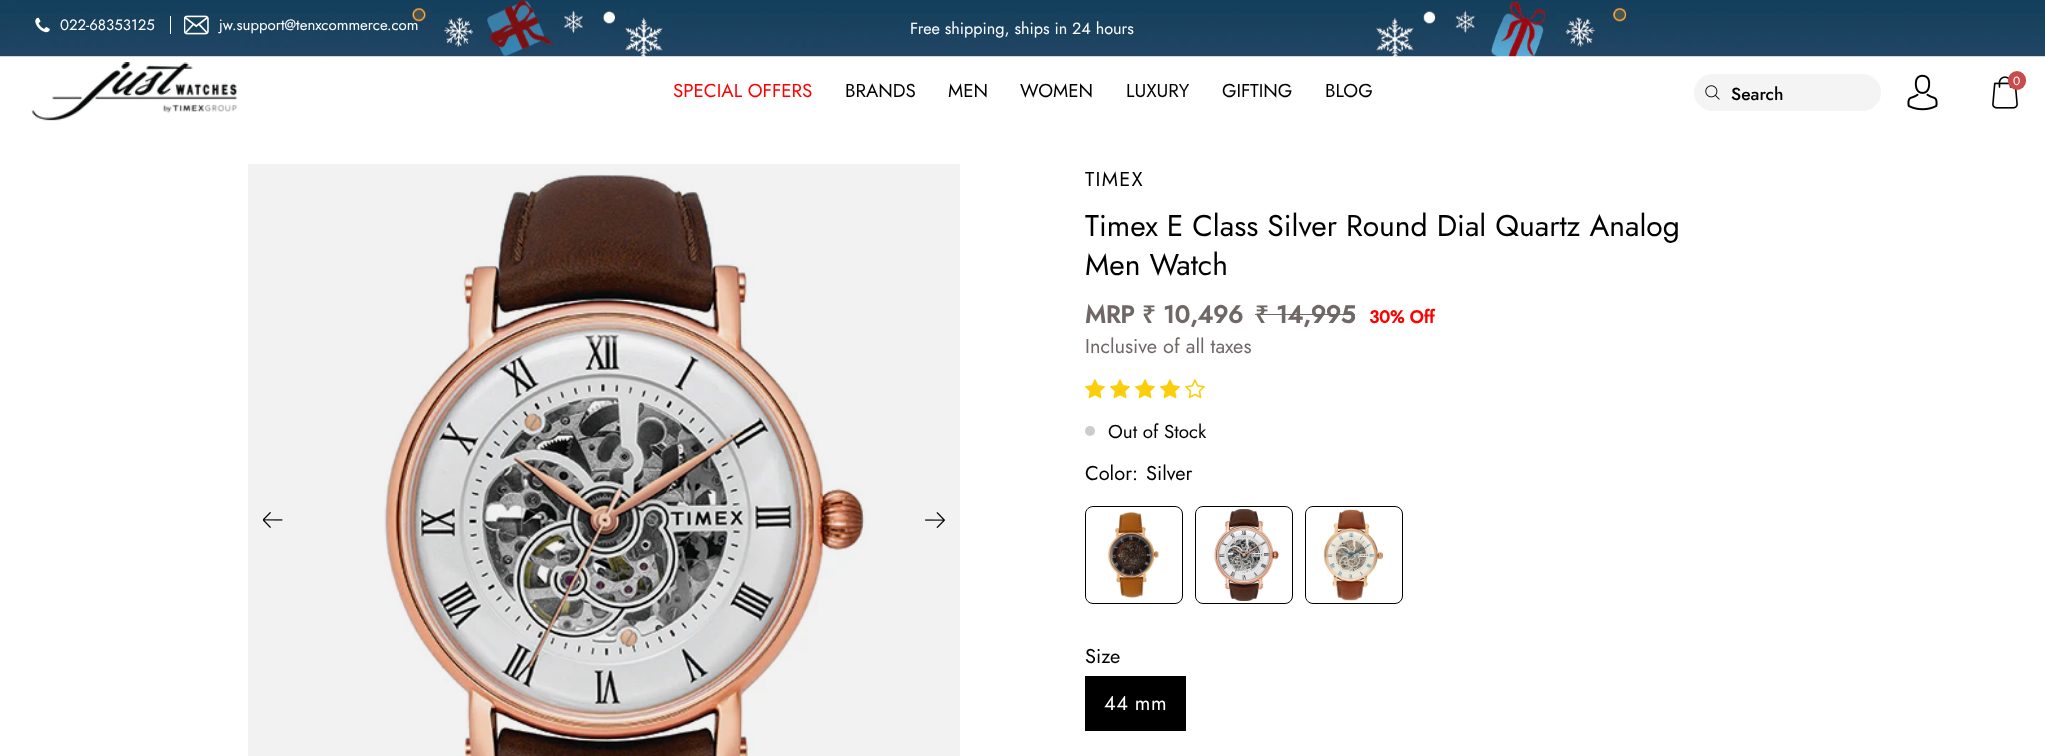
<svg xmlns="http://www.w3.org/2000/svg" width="2045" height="756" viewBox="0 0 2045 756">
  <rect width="100%" height="100%" fill="rgb(255,255,255)"/>
  <rect x="248" y="164" width="712" height="592" fill="rgb(242,242,242)"/>
  <image x="0" y="0" width="2045" height="57" href="pic1.png"/>
  <image x="35" y="17" width="15" height="16" href="pic2.png"/>
  <text x="60" y="30" font-family="Jost" font-size="15" fill="rgb(255,255,255)">022-68353125</text>
  <rect x="170" y="16" width="1" height="18" fill="rgb(255,255,255)"/>
  <image x="184" y="15" width="25" height="20" href="pic3.png"/>
  <text x="219" y="30" font-family="Jost" font-size="15" fill="rgb(255,255,255)">jw.support@tenxcommerce.com</text>
  <text x="910" y="34" font-family="Jost" font-size="16.25" fill="rgb(255,255,255)">Free shipping, ships in 24 hours</text>
  <image x="31" y="62" width="207" height="59" href="pic4.png"/>
  <text x="673" y="97" font-family="Jost" font-size="18.75" fill="rgb(255,0,0)">SPECIAL OFFERS</text>
  <g font-family="Jost" font-size="18.75" fill="rgb(0,0,0)">
    <text x="845" y="97">BRANDS</text>
    <text x="948" y="97">MEN</text>
    <text x="1020" y="97">WOMEN</text>
    <text x="1126" y="97">LUXURY</text>
    <text x="1222" y="97">GIFTING</text>
    <text x="1325" y="97">BLOG</text>
  </g>
  <image x="1907" y="74" width="31" height="37" href="pic5.png"/>
  <image x="1992" y="76" width="26" height="33" href="pic6.png"/>
  <rect x="2008" y="71" width="18" height="19" rx="9" fill="rgb(202,75,77)"/>
  <text x="2013" y="85" font-family="Jost" font-size="12" fill="rgb(255,255,255)">0</text>
  <rect x="1694.5" y="74.5" width="186" height="36" rx="18" fill="rgb(244,244,244)" stroke="rgb(244,244,244)"/>
  <image x="1705" y="85" width="15" height="15" href="pic7.png"/>
  <text x="1731" y="100" font-family="Jost" font-size="17.5" font-weight="500" fill="rgb(0,0,0)">Search</text>
  <image x="263" y="512" width="20" height="16" href="pic8.png"/>
  <image x="384" y="174" width="485" height="582" href="pic9.png"/>
  <image x="925" y="512" width="20" height="16" href="pic10.png"/>
  <text x="1085" y="186" font-family="Jost" font-size="20" letter-spacing="1.25" fill="rgb(0,0,0)">TIMEX</text>
  <g font-family="Jost" font-size="30" fill="rgb(0,0,0)">
    <text>
      <tspan x="1085" y="236">Timex E Class Silver Round Dial Quartz Analog</tspan>
      <tspan x="1085" y="275">Men Watch</tspan>
    </text>
  </g>
  <text x="1085" y="323" font-family="Jost" font-size="24.5" font-weight="bold" fill="rgb(112,103,103)">MRP</text>
  <text x="1142" y="323" font-family="Noto Sans" font-size="24.5" font-weight="600" fill="rgb(112,103,103)">₹</text>
  <text x="1163" y="323" font-family="Jost" font-size="24.5" font-weight="bold" fill="rgb(112,103,103)">10,496</text>
  <text x="1255" y="323" font-family="Noto Sans" font-size="24.5" font-weight="600" fill="rgb(112,103,103)">₹</text>
  <rect x="1255" y="314" width="100" height="1" fill="rgb(112,103,103)"/>
  <text x="1276" y="323" font-family="Jost" font-size="24.5" font-weight="bold" fill="rgb(112,103,103)">14,995</text>
  <text x="1369" y="323" font-family="Jost" font-size="17.5" font-weight="bold" fill="rgb(255,0,0)">30% Off</text>
  <text x="1085" y="353" font-family="Jost" font-size="20" fill="rgb(112,103,103)">Inclusive of all taxes</text>
  <image x="1085" y="379" width="20" height="20" href="pic11.png"/>
  <image x="1110" y="379" width="20" height="20" href="pic11.png"/>
  <image x="1135" y="379" width="20" height="20" href="pic11.png"/>
  <image x="1160" y="379" width="20" height="20" href="pic11.png"/>
  <image x="1185" y="379" width="20" height="20" href="pic12.png"/>
  <circle cx="1090" cy="431" r="5" fill="rgb(204,204,204)"/>
  <text x="1108" y="438" font-family="Jost" font-size="18.75" fill="rgb(0,0,0)">Out of Stock</text>
  <g font-family="Jost" font-size="20" fill="rgb(0,0,0)">
    <text x="1085" y="480">Color:</text>
    <text x="1146" y="480">Silver</text>
  </g>
  <rect x="1085.5" y="506.5" width="97" height="97" rx="7.5" fill="none" stroke="rgb(0,0,0)"/>
  <image x="1086" y="507" width="95" height="96" href="pic13.png"/>
  <rect x="1195.5" y="506.5" width="97" height="97" rx="7.5" fill="none" stroke="rgb(0,0,0)"/>
  <image x="1196" y="507" width="95" height="96" href="pic14.png"/>
  <rect x="1305.5" y="506.5" width="97" height="97" rx="7.5" fill="none" stroke="rgb(0,0,0)"/>
  <image x="1306" y="507" width="95" height="96" href="pic15.png"/>
  <text x="1085" y="663" font-family="Jost" font-size="20" fill="rgb(0,0,0)">Size</text>
  <rect x="1085" y="676" width="101" height="55" fill="rgb(0,0,0)"/>
  <text x="1104" y="710" font-family="Jost" font-size="20" letter-spacing="0.5" fill="rgb(255,255,255)">44 mm</text>
</svg>
